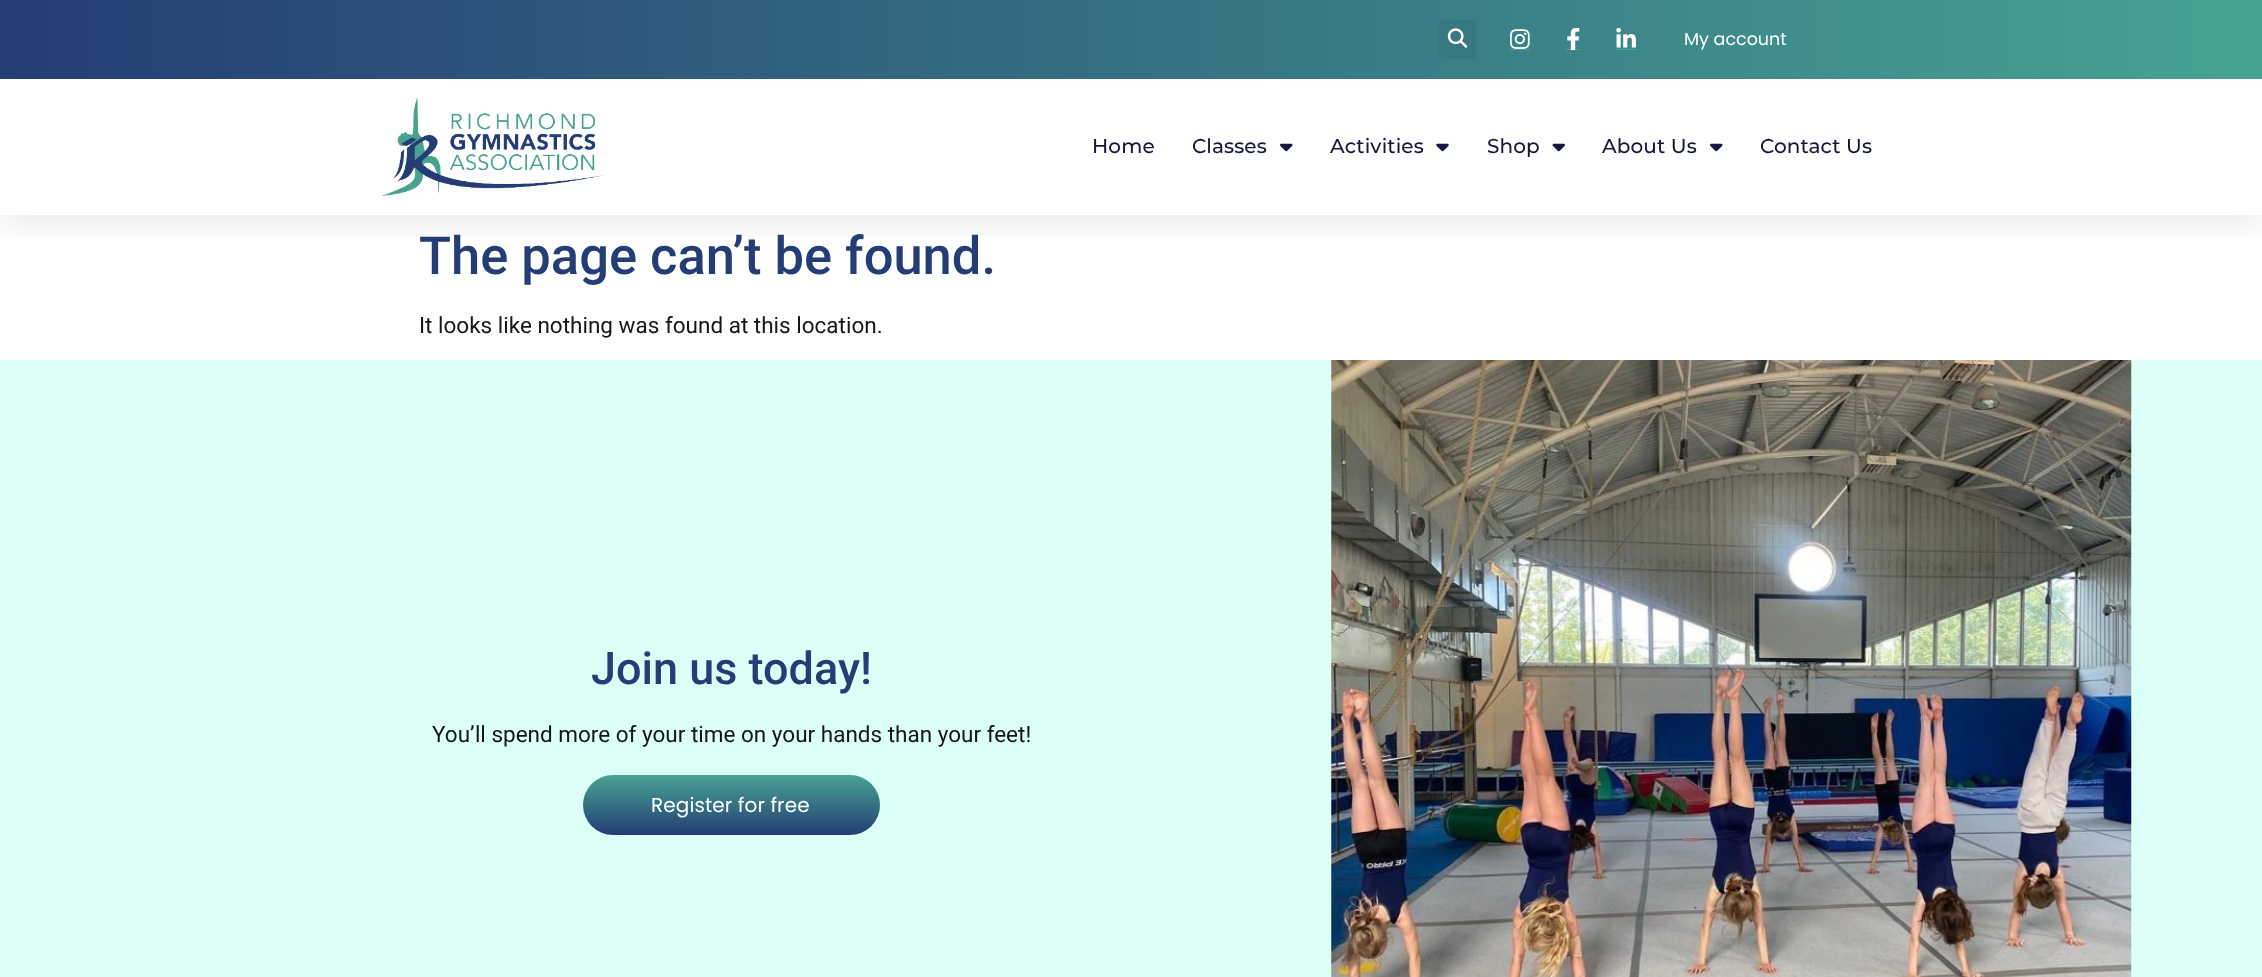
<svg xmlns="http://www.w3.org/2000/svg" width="2262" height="977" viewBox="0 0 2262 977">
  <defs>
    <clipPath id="clip1"><rect x="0" y="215" width="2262" height="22"/></clipPath>
    <linearGradient id="g1" gradientUnits="userSpaceOnUse" x1="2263" y1="39" x2="0" y2="39"><stop offset="0" stop-color="rgb(71,163,145)"/><stop offset="1" stop-color="rgb(36,61,117)"/></linearGradient>
    <linearGradient id="g2" gradientUnits="userSpaceOnUse" x1="731" y1="775" x2="731" y2="835"><stop offset="0" stop-color="rgb(71,163,145)"/><stop offset="1" stop-color="rgb(36,61,117)"/></linearGradient>
  </defs>
  <rect width="100%" height="100%" fill="rgb(255,255,255)"/>
  <g clip-path="url(#clip1)">
    <rect x="0" y="6" width="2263" height="215" fill="rgba(0,0,0,0.1)" filter="blur(19px)"/>
  </g>
  <rect x="0" y="0" width="2262" height="79" fill="url(#g1)"/>
  <rect x="1438" y="20" width="38" height="39" rx="4" fill="rgb(56,120,128)"/>
  <image x="1447" y="28" width="21" height="20" href="pic1.png"/>
  <image x="1510" y="29" width="20" height="20" href="pic2.png"/>
  <rect x="1510" y="49" width="20" height="1" fill="rgb(71,163,145)"/>
  <rect x="1566" y="49" width="14" height="1" fill="rgb(71,163,145)"/>
  <image x="1567" y="28" width="13" height="22" href="pic3.png"/>
  <image x="1616" y="28" width="20" height="20" href="pic4.png"/>
  <rect x="1616" y="49" width="20" height="1" fill="rgb(71,163,145)"/>
  <text x="1684" y="45" font-family="Poppins" font-size="17.5" fill="rgb(255,255,255)">My account</text>
  <image x="382" y="97" width="221" height="99" href="pic5.png"/>
  <g font-family="Montserrat" font-size="20" font-weight="500" letter-spacing="0.1" fill="rgb(22,22,63)">
    <text x="1092" y="153">Home</text>
    <text x="1192" y="153">Classes</text>
  </g>
  <image x="1280" y="143" width="13" height="9" href="pic6.png"/>
  <text x="1330" y="153" font-family="Montserrat" font-size="20" font-weight="500" letter-spacing="0.1" fill="rgb(22,22,63)">Activities</text>
  <image x="1436" y="143" width="13" height="9" href="pic7.png"/>
  <text x="1487" y="153" font-family="Montserrat" font-size="20" font-weight="500" letter-spacing="0.1" fill="rgb(22,22,63)">Shop</text>
  <image x="1552" y="143" width="13" height="9" href="pic8.png"/>
  <text x="1602" y="153" font-family="Montserrat" font-size="20" font-weight="500" letter-spacing="0.1" fill="rgb(22,22,63)">About Us</text>
  <image x="1710" y="143" width="13" height="9" href="pic6.png"/>
  <text x="1760" y="153" font-family="Montserrat" font-size="20" font-weight="500" letter-spacing="0.1" fill="rgb(22,22,63)">Contact Us</text>
  <text x="419" y="274" font-family="Roboto" font-size="52.5" font-weight="500" fill="rgb(36,61,117)">The page can’t be found.</text>
  <text x="419" y="333" font-family="Roboto" font-size="22.5" fill="rgb(22,22,22)">It looks like nothing was found at this location.</text>
  <rect x="0" y="360" width="2262" height="617" fill="rgb(220,255,248)"/>
  <text x="591" y="684" font-family="Roboto" font-size="45" font-weight="500" fill="rgb(36,61,117)">Join us today!</text>
  <text x="432" y="742" font-family="Roboto" font-size="22.5" fill="rgb(22,22,22)">You’ll spend more of your time on your hands than your feet!</text>
  <rect x="583" y="775" width="297" height="60" rx="30" fill="url(#g2)"/>
  <text x="651" y="812" font-family="Poppins" font-size="20" letter-spacing="0.1" fill="rgb(255,255,255)">Register for free</text>
  <image x="1331" y="360" width="801" height="617" href="pic9.png"/>
</svg>
